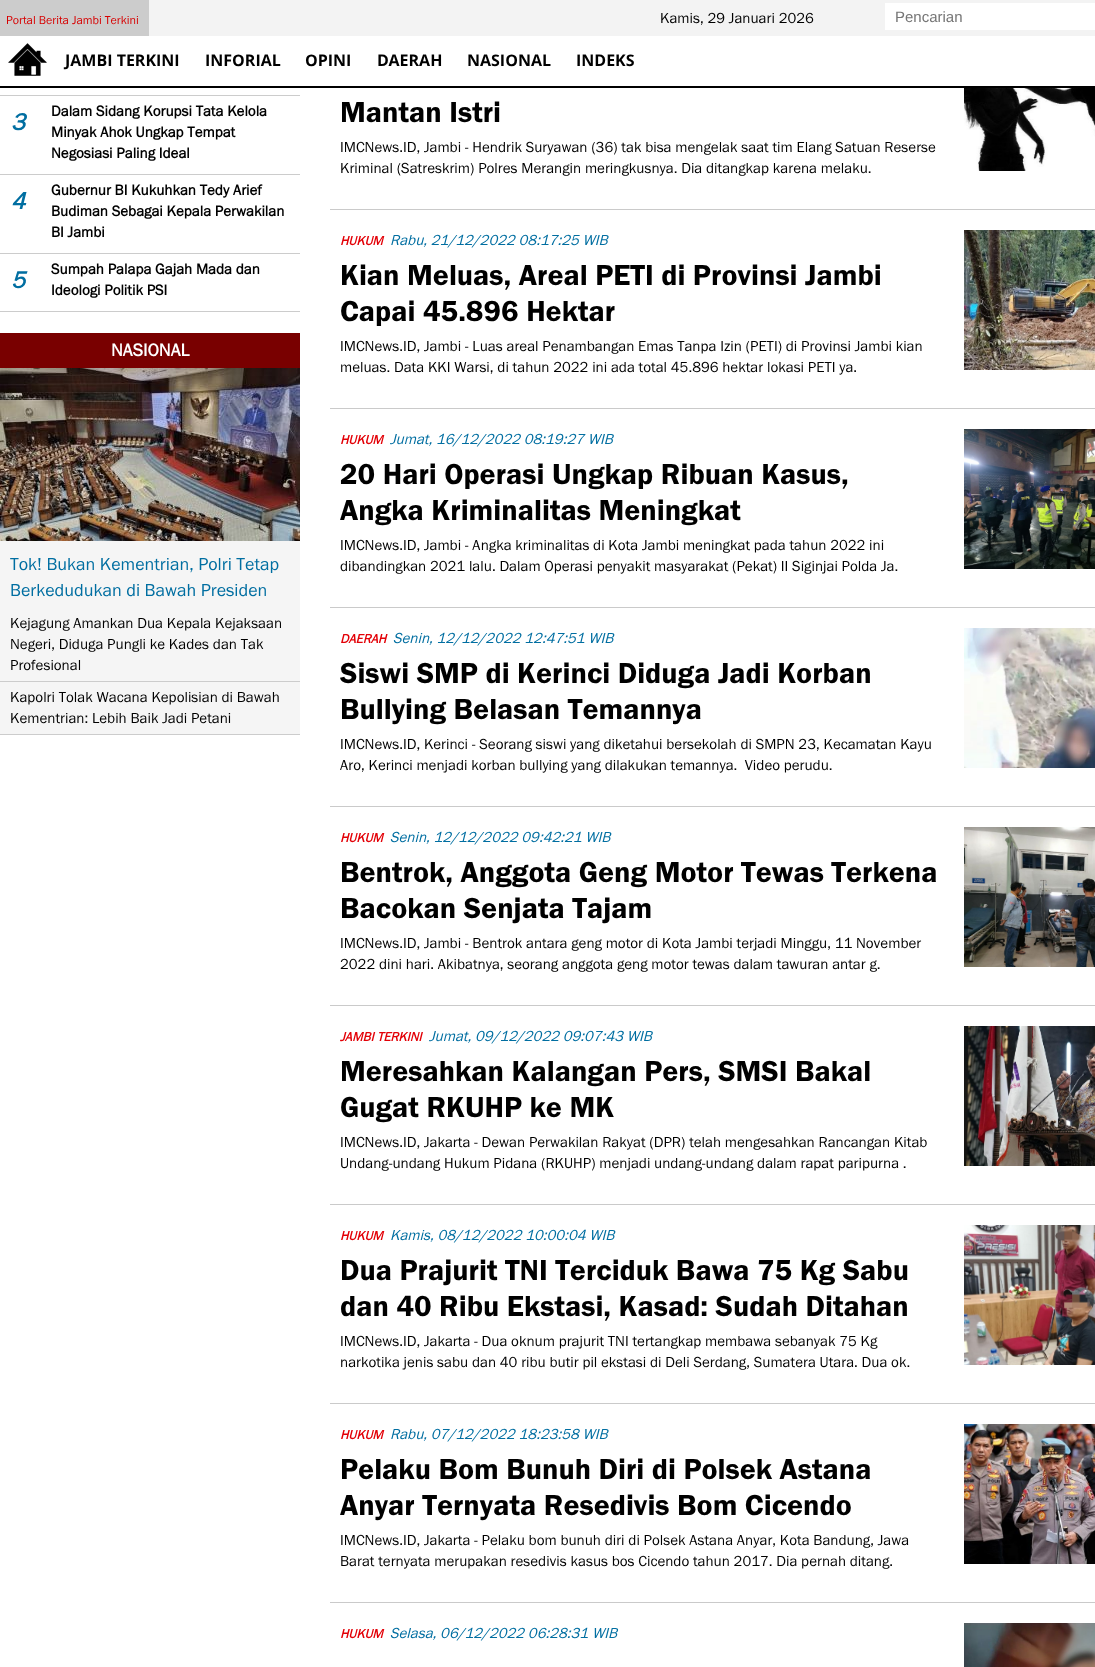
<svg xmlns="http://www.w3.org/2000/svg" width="1095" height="1667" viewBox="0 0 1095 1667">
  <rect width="100%" height="100%" fill="rgb(255,255,255)"/>
  <rect x="149" y="0" width="946" height="36" fill="rgb(243,243,243)"/>
  <rect x="0" y="0" width="149" height="36" fill="rgb(204,204,204)"/>
  <text x="6" y="24" font-family="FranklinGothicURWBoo" font-size="12" fill="rgb(215,0,0)">Portal Berita Jambi Terkini</text>
  <text x="660" y="23" font-family="FranklinGothicURWBoo" font-size="15" fill="rgb(0,0,0)">Kamis, 29 Januari 2026</text>
  <rect x="885" y="3" width="210" height="27" fill="rgb(255,255,255)"/>
  <text x="895" y="22" font-family="Liberation Sans" font-size="15" fill="rgb(117,117,117)">Pencarian</text>
  <rect x="0" y="86" width="1095" height="2" fill="rgb(0,0,0)"/>
  <image x="8" y="43" width="39" height="33" href="pic1.png"/>
  <g font-family="Open Sans" font-size="16" font-weight="bold" fill="rgb(0,0,0)">
    <text x="65" y="66">JAMBI TERKINI</text>
    <text x="205" y="66">INFORIAL</text>
    <text x="305" y="66">OPINI</text>
    <text x="377" y="66">DAERAH</text>
    <text x="467" y="66">NASIONAL</text>
    <text x="576" y="66">INDEKS</text>
  </g>
  <rect x="0" y="95" width="300" height="1" fill="rgb(204,204,204)"/>
  <rect x="0" y="174" width="300" height="1" fill="rgb(204,204,204)"/>
  <text x="11" y="130" font-family="FranklinGothicURWBoo" font-size="24" font-weight="bold" font-style="italic" fill="rgb(0,110,161)">3</text>
  <g font-family="FranklinGothicURWBoo" font-size="15" font-weight="bold" fill="rgb(0,0,0)">
    <text>
      <tspan x="51" y="116">Dalam Sidang Korupsi Tata Kelola</tspan>
      <tspan x="51" y="137">Minyak Ahok Ungkap Tempat</tspan>
      <tspan x="51" y="158">Negosiasi Paling Ideal</tspan>
    </text>
  </g>
  <rect x="0" y="253" width="300" height="1" fill="rgb(204,204,204)"/>
  <text x="11" y="209" font-family="FranklinGothicURWBoo" font-size="24" font-weight="bold" font-style="italic" fill="rgb(0,110,161)">4</text>
  <g font-family="FranklinGothicURWBoo" font-size="15" font-weight="bold" fill="rgb(0,0,0)">
    <text>
      <tspan x="51" y="195">Gubernur BI Kukuhkan Tedy Arief</tspan>
      <tspan x="51" y="216">Budiman Sebagai Kepala Perwakilan</tspan>
      <tspan x="51" y="237">BI Jambi</tspan>
    </text>
  </g>
  <rect x="0" y="311" width="300" height="1" fill="rgb(204,204,204)"/>
  <text x="11" y="288" font-family="FranklinGothicURWBoo" font-size="24" font-weight="bold" font-style="italic" fill="rgb(0,110,161)">5</text>
  <g font-family="FranklinGothicURWBoo" font-size="15" font-weight="bold" fill="rgb(0,0,0)">
    <text>
      <tspan x="51" y="274">Sumpah Palapa Gajah Mada dan</tspan>
      <tspan x="51" y="295">Ideologi Politik PSI</tspan>
    </text>
  </g>
  <rect x="0" y="541" width="300" height="193" fill="rgb(245,245,245)"/>
  <rect x="0" y="333" width="300" height="35" fill="rgb(121,0,0)"/>
  <text x="111" y="356" font-family="FranklinGothicURWBoo" font-size="18" font-weight="bold" fill="rgb(255,255,255)">NASIONAL</text>
  <image x="0" y="368" width="300" height="173" href="pic2.png"/>
  <g font-family="FranklinGothicURWBoo" font-size="18" fill="rgb(0,110,161)">
    <text>
      <tspan x="10" y="570">Tok! Bukan Kementrian, Polri Tetap</tspan>
      <tspan x="10" y="596">Berkedudukan di Bawah Presiden</tspan>
    </text>
  </g>
  <rect x="0" y="681" width="300" height="1" fill="rgb(204,204,204)"/>
  <g font-family="FranklinGothicURWBoo" font-size="15" fill="rgb(0,0,0)">
    <text>
      <tspan x="10" y="628">Kejagung Amankan Dua Kepala Kejaksaan</tspan>
      <tspan x="10" y="649">Negeri, Diduga Pungli ke Kades dan Tak</tspan>
      <tspan x="10" y="670">Profesional</tspan>
    </text>
  </g>
  <rect x="0" y="734" width="300" height="1" fill="rgb(204,204,204)"/>
  <g font-family="FranklinGothicURWBoo" font-size="15" fill="rgb(0,0,0)">
    <text>
      <tspan x="10" y="702">Kapolri Tolak Wacana Kepolisian di Bawah</tspan>
      <tspan x="10" y="723">Kementrian: Lebih Baik Jadi Petani</tspan>
    </text>
  </g>
  <rect x="330" y="209" width="765" height="1" fill="rgb(202,202,202)"/>
  <text x="340" y="122" font-family="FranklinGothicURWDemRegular" font-size="30" fill="rgb(0,0,0)">Mantan Istri</text>
  <g font-family="FranklinGothicURWBoo" font-size="15" fill="rgb(0,0,0)">
    <text>
      <tspan x="340" y="152">IMCNews.ID, Jambi - Hendrik Suryawan (36) tak bisa mengelak saat tim Elang Satuan Reserse</tspan>
      <tspan x="340" y="173">Kriminal (Satreskrim) Polres Merangin meringkusnya. Dia ditangkap karena melaku.</tspan>
    </text>
  </g>
  <image x="964" y="88" width="131" height="83" href="pic3.png"/>
  <rect x="330" y="408" width="765" height="1" fill="rgb(202,202,202)"/>
  <text x="340" y="245" font-family="FranklinGothicURWBoo" font-size="13" font-weight="bold" font-style="italic" fill="rgb(227,0,7)">HUKUM</text>
  <text x="390" y="245" font-family="FranklinGothicURWBoo" font-size="15" font-style="italic" fill="rgb(0,110,161)">Rabu, 21/12/2022 08:17:25 WIB</text>
  <g font-family="FranklinGothicURWDemRegular" font-size="30" fill="rgb(0,0,0)">
    <text>
      <tspan x="340" y="285">Kian Meluas, Areal PETI di Provinsi Jambi</tspan>
      <tspan x="340" y="321">Capai 45.896 Hektar</tspan>
    </text>
  </g>
  <g font-family="FranklinGothicURWBoo" font-size="15" fill="rgb(0,0,0)">
    <text>
      <tspan x="340" y="351">IMCNews.ID, Jambi - Luas areal Penambangan Emas Tanpa Izin (PETI) di Provinsi Jambi kian</tspan>
      <tspan x="340" y="372">meluas. Data KKI Warsi, di tahun 2022 ini ada total 45.896 hektar lokasi PETI ya.</tspan>
    </text>
  </g>
  <image x="964" y="230" width="131" height="140" href="pic4.png"/>
  <rect x="330" y="607" width="765" height="1" fill="rgb(202,202,202)"/>
  <text x="340" y="444" font-family="FranklinGothicURWBoo" font-size="13" font-weight="bold" font-style="italic" fill="rgb(227,0,7)">HUKUM</text>
  <text x="390" y="444" font-family="FranklinGothicURWBoo" font-size="15" font-style="italic" fill="rgb(0,110,161)">Jumat, 16/12/2022 08:19:27 WIB</text>
  <g font-family="FranklinGothicURWDemRegular" font-size="30" fill="rgb(0,0,0)">
    <text>
      <tspan x="340" y="484">20 Hari Operasi Ungkap Ribuan Kasus,</tspan>
      <tspan x="340" y="520">Angka Kriminalitas Meningkat</tspan>
    </text>
  </g>
  <g font-family="FranklinGothicURWBoo" font-size="15" fill="rgb(0,0,0)">
    <text>
      <tspan x="340" y="550">IMCNews.ID, Jambi - Angka kriminalitas di Kota Jambi meningkat pada tahun 2022 ini</tspan>
      <tspan x="340" y="571">dibandingkan 2021 lalu. Dalam Operasi penyakit masyarakat (Pekat) II Siginjai Polda Ja.</tspan>
    </text>
  </g>
  <image x="964" y="429" width="131" height="140" href="pic5.png"/>
  <rect x="330" y="806" width="765" height="1" fill="rgb(202,202,202)"/>
  <text x="340" y="643" font-family="FranklinGothicURWBoo" font-size="13" font-weight="bold" font-style="italic" fill="rgb(227,0,7)">DAERAH</text>
  <text x="393" y="643" font-family="FranklinGothicURWBoo" font-size="15" font-style="italic" fill="rgb(0,110,161)">Senin, 12/12/2022 12:47:51 WIB</text>
  <g font-family="FranklinGothicURWDemRegular" font-size="30" fill="rgb(0,0,0)">
    <text>
      <tspan x="340" y="683">Siswi SMP di Kerinci Diduga Jadi Korban</tspan>
      <tspan x="340" y="719">Bullying Belasan Temannya</tspan>
    </text>
  </g>
  <g font-family="FranklinGothicURWBoo" font-size="15" fill="rgb(0,0,0)">
    <text xml:space="preserve"><tspan x="340" y="749">IMCNews.ID, Kerinci - Seorang siswi yang diketahui bersekolah di SMPN 23, Kecamatan Kayu</tspan><tspan x="340" y="770">Aro, Kerinci menjadi korban bullying yang dilakukan temannya.  Video perudu.</tspan></text>
  </g>
  <image x="964" y="628" width="131" height="140" href="pic6.png"/>
  <rect x="330" y="1005" width="765" height="1" fill="rgb(202,202,202)"/>
  <text x="340" y="842" font-family="FranklinGothicURWBoo" font-size="13" font-weight="bold" font-style="italic" fill="rgb(227,0,7)">HUKUM</text>
  <text x="390" y="842" font-family="FranklinGothicURWBoo" font-size="15" font-style="italic" fill="rgb(0,110,161)">Senin, 12/12/2022 09:42:21 WIB</text>
  <g font-family="FranklinGothicURWDemRegular" font-size="30" fill="rgb(0,0,0)">
    <text>
      <tspan x="340" y="882">Bentrok, Anggota Geng Motor Tewas Terkena</tspan>
      <tspan x="340" y="918">Bacokan Senjata Tajam</tspan>
    </text>
  </g>
  <g font-family="FranklinGothicURWBoo" font-size="15" fill="rgb(0,0,0)">
    <text>
      <tspan x="340" y="948">IMCNews.ID, Jambi - Bentrok antara geng motor di Kota Jambi terjadi Minggu, 11 November</tspan>
      <tspan x="340" y="969">2022 dini hari. Akibatnya, seorang anggota geng motor tewas dalam tawuran antar g.</tspan>
    </text>
  </g>
  <image x="964" y="827" width="131" height="140" href="pic7.png"/>
  <rect x="330" y="1204" width="765" height="1" fill="rgb(202,202,202)"/>
  <text x="340" y="1041" font-family="FranklinGothicURWBoo" font-size="13" font-weight="bold" font-style="italic" fill="rgb(227,0,7)">JAMBI TERKINI</text>
  <text x="429" y="1041" font-family="FranklinGothicURWBoo" font-size="15" font-style="italic" fill="rgb(0,110,161)">Jumat, 09/12/2022 09:07:43 WIB</text>
  <g font-family="FranklinGothicURWDemRegular" font-size="30" fill="rgb(0,0,0)">
    <text>
      <tspan x="340" y="1081">Meresahkan Kalangan Pers, SMSI Bakal</tspan>
      <tspan x="340" y="1117">Gugat RKUHP ke MK</tspan>
    </text>
  </g>
  <g font-family="FranklinGothicURWBoo" font-size="15" fill="rgb(0,0,0)">
    <text>
      <tspan x="340" y="1147">IMCNews.ID, Jakarta - Dewan Perwakilan Rakyat (DPR) telah mengesahkan Rancangan Kitab</tspan>
      <tspan x="340" y="1168">Undang-undang Hukum Pidana (RKUHP) menjadi undang-undang dalam rapat paripurna .</tspan>
    </text>
  </g>
  <image x="964" y="1026" width="131" height="140" href="pic8.png"/>
  <rect x="330" y="1403" width="765" height="1" fill="rgb(202,202,202)"/>
  <text x="340" y="1240" font-family="FranklinGothicURWBoo" font-size="13" font-weight="bold" font-style="italic" fill="rgb(227,0,7)">HUKUM</text>
  <text x="390" y="1240" font-family="FranklinGothicURWBoo" font-size="15" font-style="italic" fill="rgb(0,110,161)">Kamis, 08/12/2022 10:00:04 WIB</text>
  <g font-family="FranklinGothicURWDemRegular" font-size="30" fill="rgb(0,0,0)">
    <text>
      <tspan x="340" y="1280">Dua Prajurit TNI Terciduk Bawa 75 Kg Sabu</tspan>
      <tspan x="340" y="1316">dan 40 Ribu Ekstasi, Kasad: Sudah Ditahan</tspan>
    </text>
  </g>
  <g font-family="FranklinGothicURWBoo" font-size="15" fill="rgb(0,0,0)">
    <text>
      <tspan x="340" y="1346">IMCNews.ID, Jakarta - Dua oknum prajurit TNI tertangkap membawa sebanyak 75 Kg</tspan>
      <tspan x="340" y="1367">narkotika jenis sabu dan 40 ribu butir pil ekstasi di Deli Serdang, Sumatera Utara. Dua ok.</tspan>
    </text>
  </g>
  <image x="964" y="1225" width="131" height="140" href="pic9.png"/>
  <rect x="330" y="1602" width="765" height="1" fill="rgb(202,202,202)"/>
  <text x="340" y="1439" font-family="FranklinGothicURWBoo" font-size="13" font-weight="bold" font-style="italic" fill="rgb(227,0,7)">HUKUM</text>
  <text x="390" y="1439" font-family="FranklinGothicURWBoo" font-size="15" font-style="italic" fill="rgb(0,110,161)">Rabu, 07/12/2022 18:23:58 WIB</text>
  <g font-family="FranklinGothicURWDemRegular" font-size="30" fill="rgb(0,0,0)">
    <text>
      <tspan x="340" y="1479">Pelaku Bom Bunuh Diri di Polsek Astana</tspan>
      <tspan x="340" y="1515">Anyar Ternyata Resedivis Bom Cicendo</tspan>
    </text>
  </g>
  <g font-family="FranklinGothicURWBoo" font-size="15" fill="rgb(0,0,0)">
    <text>
      <tspan x="340" y="1545">IMCNews.ID, Jakarta - Pelaku bom bunuh diri di Polsek Astana Anyar, Kota Bandung, Jawa</tspan>
      <tspan x="340" y="1566">Barat ternyata merupakan resedivis kasus bos Cicendo tahun 2017. Dia pernah ditang.</tspan>
    </text>
  </g>
  <image x="964" y="1424" width="131" height="140" href="pic10.png"/>
  <text x="340" y="1638" font-family="FranklinGothicURWBoo" font-size="13" font-weight="bold" font-style="italic" fill="rgb(227,0,7)">HUKUM</text>
  <text x="390" y="1638" font-family="FranklinGothicURWBoo" font-size="15" font-style="italic" fill="rgb(0,110,161)">Selasa, 06/12/2022 06:28:31 WIB</text>
  <image x="964" y="1623" width="131" height="44" href="pic11.png"/>
</svg>
